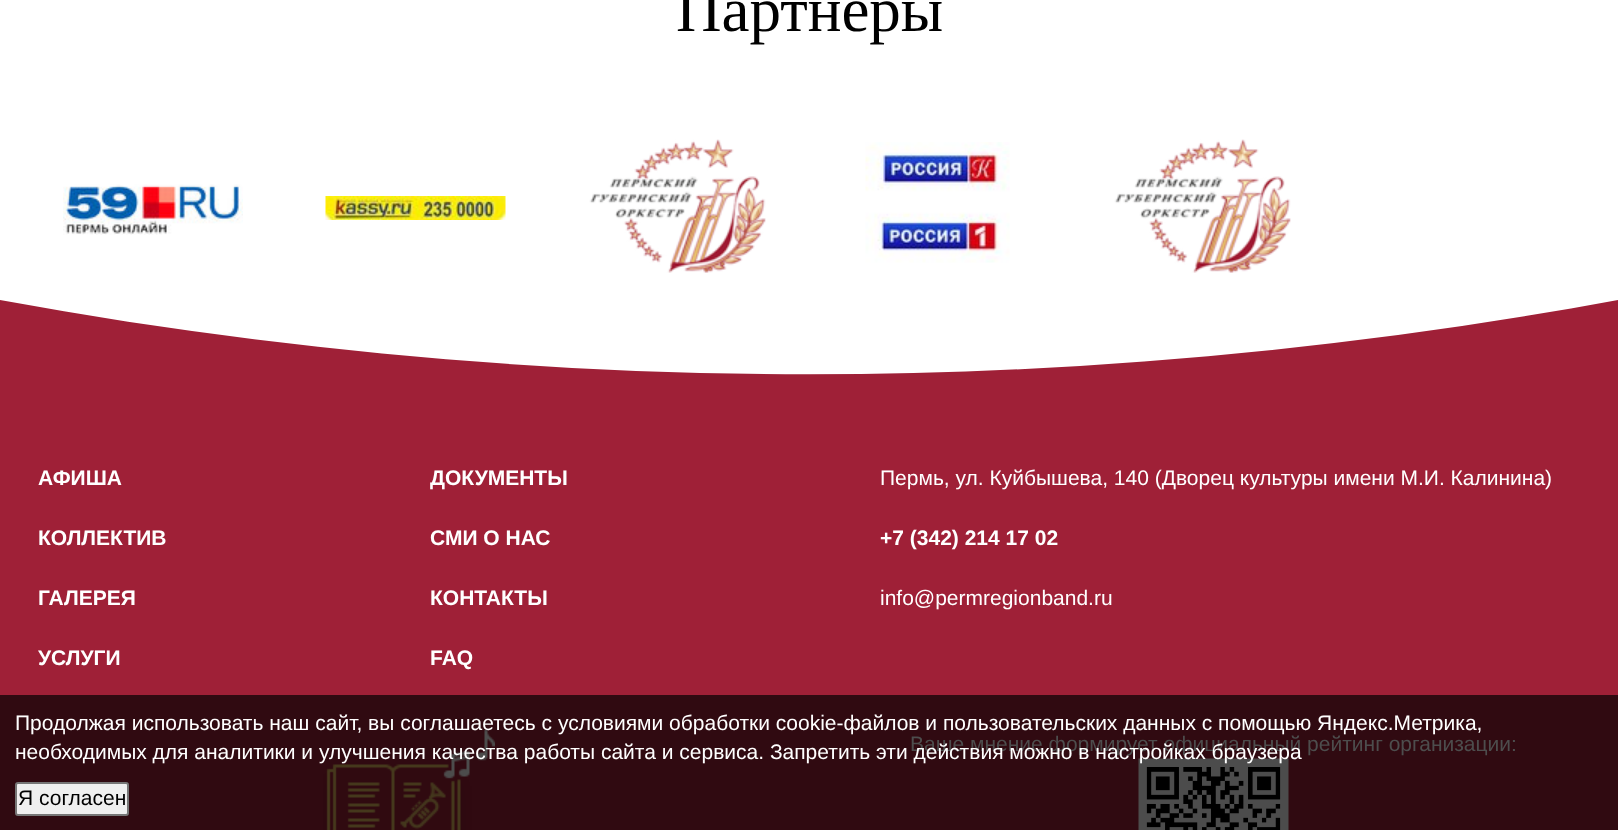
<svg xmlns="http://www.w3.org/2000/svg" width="1618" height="830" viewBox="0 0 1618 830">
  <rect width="100%" height="100%" fill="rgb(255,255,255)"/>
  <text x="676" y="31" font-family="Liberation Serif" font-size="63" fill="rgb(0,0,0)">Партнёры</text>
  <image x="63" y="184" width="180" height="51" href="pic1.png"/>
  <image x="325" y="196" width="181" height="24" href="pic2.png"/>
  <image x="589" y="139" width="177" height="134" href="pic3.png"/>
  <image x="865" y="142" width="145" height="121" href="pic4.png"/>
  <image x="1114" y="139" width="177" height="134" href="pic5.png"/>
  <rect x="0" y="450" width="1618" height="245" fill="rgb(159,32,55)"/>
  <rect x="0" y="695" width="1618" height="135" fill="rgb(48,10,17)"/>
  <path d="M0 300C539 399 1079 399 1618 300V450H0" fill="rgb(159,32,55)"/>
  <g font-family="Liberation Sans" font-size="21" font-weight="bold" fill="rgb(255,255,255)">
    <text x="38" y="485">АФИША</text>
    <text x="430" y="485">ДОКУМЕНТЫ</text>
    <text x="38" y="545">КОЛЛЕКТИВ</text>
    <text x="430" y="545">СМИ О НАС</text>
    <text x="38" y="605">ГАЛЕРЕЯ</text>
    <text x="430" y="605">КОНТАКТЫ</text>
    <text x="38" y="665">УСЛУГИ</text>
    <text x="430" y="665">FAQ</text>
  </g>
  <text x="880" y="485" font-family="Liberation Sans" font-size="21" fill="rgb(255,255,255)">Пермь, ул. Куйбышева, 140 (Дворец культуры имени М.И. Калинина)</text>
  <text x="880" y="545" font-family="Liberation Sans" font-size="21" font-weight="bold" fill="rgb(255,255,255)">+7 (342) 214 17 02</text>
  <text x="880" y="605" font-family="Liberation Sans" font-size="21" fill="rgb(255,255,255)">info@permregionband.ru</text>
  <image x="323" y="730" width="172" height="100" href="pic6.png"/>
  <text x="910" y="751" font-family="Liberation Sans" font-size="21" fill="rgb(77,77,77)">Ваше мнение формирует официальный рейтинг организации:</text>
  <image x="1138" y="758" width="151" height="72" href="pic7.png"/>
  <g font-family="Liberation Sans" font-size="21" fill="rgb(255,255,255)">
    <text>
      <tspan x="15" y="730">Продолжая использовать наш сайт, вы соглашаетесь с условиями обработки cookie-файлов и пользовательских данных с помощью Яндекс.Метрика,</tspan>
      <tspan x="15" y="759">необходимых для аналитики и улучшения качества работы сайта и сервиса. Запретить эти действия можно в настройках браузера</tspan>
    </text>
  </g>
  <rect x="16" y="783" width="112" height="32" rx="2" fill="rgb(239,239,239)" stroke="rgb(118,118,118)" stroke-width="2"/>
  <text x="18" y="805" font-family="Liberation Sans" font-size="21" fill="rgb(0,0,0)">Я согласен</text>
</svg>
